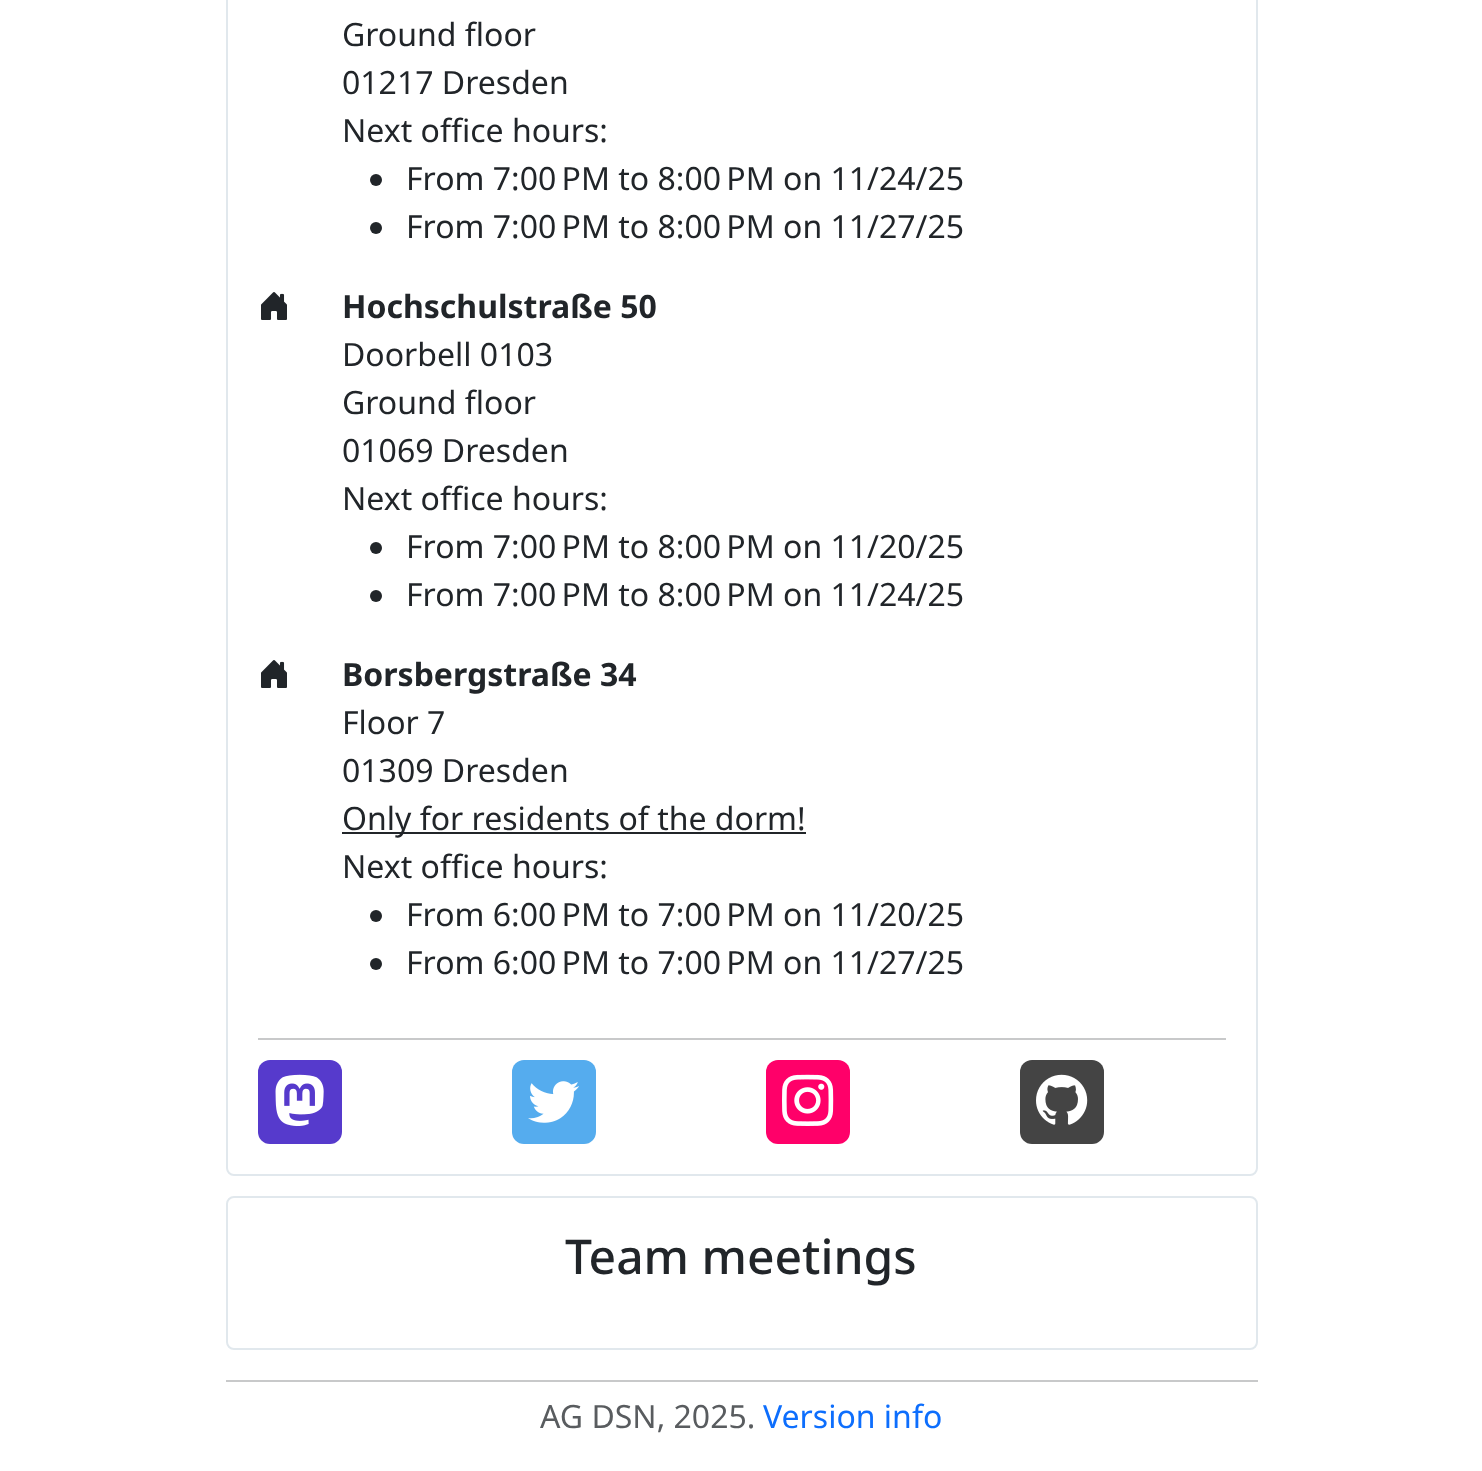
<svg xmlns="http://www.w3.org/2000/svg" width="1482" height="1471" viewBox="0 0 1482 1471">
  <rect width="100%" height="100%" fill="rgb(255,255,255)"/>
  <rect x="227" y="-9" width="1030" height="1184" rx="7" fill="none" stroke="rgb(225,232,237)" stroke-width="2"/>
  <g font-family="Noto Sans" font-size="32" fill="rgb(33,37,41)">
    <text>
      <tspan x="342" y="46">Ground floor</tspan>
      <tspan x="342" y="94">01217 Dresden</tspan>
      <tspan x="342" y="142">Next office hours:</tspan>
    </text>
  </g>
  <circle cx="376" cy="180" r="6" fill="rgb(33,37,41)"/>
  <text x="406" y="190" font-family="Noto Sans" font-size="32" fill="rgb(33,37,41)">From 7:00 PM to 8:00 PM on 11/24/25</text>
  <circle cx="376" cy="228" r="6" fill="rgb(33,37,41)"/>
  <text x="406" y="238" font-family="Noto Sans" font-size="32" fill="rgb(33,37,41)">From 7:00 PM to 8:00 PM on 11/27/25</text>
  <image x="261" y="292" width="26" height="28" href="pic1.png"/>
  <text x="342" y="318" font-family="Noto Sans" font-size="32" font-weight="bold" fill="rgb(33,37,41)">Hochschulstraße 50</text>
  <g font-family="Noto Sans" font-size="32" fill="rgb(33,37,41)">
    <text>
      <tspan x="342" y="366">Doorbell 0103</tspan>
      <tspan x="342" y="414">Ground floor</tspan>
      <tspan x="342" y="462">01069 Dresden</tspan>
      <tspan x="342" y="510">Next office hours:</tspan>
    </text>
  </g>
  <circle cx="376" cy="548" r="6" fill="rgb(33,37,41)"/>
  <text x="406" y="558" font-family="Noto Sans" font-size="32" fill="rgb(33,37,41)">From 7:00 PM to 8:00 PM on 11/20/25</text>
  <circle cx="376" cy="596" r="6" fill="rgb(33,37,41)"/>
  <text x="406" y="606" font-family="Noto Sans" font-size="32" fill="rgb(33,37,41)">From 7:00 PM to 8:00 PM on 11/24/25</text>
  <image x="261" y="660" width="26" height="28" href="pic1.png"/>
  <text x="342" y="686" font-family="Noto Sans" font-size="32" font-weight="bold" fill="rgb(33,37,41)">Borsbergstraße 34</text>
  <g font-family="Noto Sans" font-size="32" fill="rgb(33,37,41)">
    <text>
      <tspan x="342" y="734">Floor 7</tspan>
      <tspan x="342" y="782">01309 Dresden</tspan>
    </text>
  </g>
  <rect x="342" y="832" width="464" height="2" fill="rgb(33,37,41)"/>
  <g font-family="Noto Sans" font-size="32" fill="rgb(33,37,41)">
    <text>
      <tspan x="342" y="830">Only for residents of the dorm!</tspan>
      <tspan x="342" y="878">Next office hours:</tspan>
    </text>
  </g>
  <circle cx="376" cy="916" r="6" fill="rgb(33,37,41)"/>
  <text x="406" y="926" font-family="Noto Sans" font-size="32" fill="rgb(33,37,41)">From 6:00 PM to 7:00 PM on 11/20/25</text>
  <circle cx="376" cy="964" r="6" fill="rgb(33,37,41)"/>
  <text x="406" y="974" font-family="Noto Sans" font-size="32" fill="rgb(33,37,41)">From 6:00 PM to 7:00 PM on 11/27/25</text>
  <rect x="258" y="1038" width="968" height="2" fill="rgb(200,201,202)"/>
  <rect x="258" y="1060" width="84" height="84" rx="12" fill="rgb(86,58,204)"/>
  <image x="275" y="1074" width="49" height="53" href="pic2.png"/>
  <rect x="512" y="1060" width="84" height="84" rx="12" fill="rgb(85,172,238)"/>
  <image x="528" y="1081" width="51" height="42" href="pic3.png"/>
  <rect x="766" y="1060" width="84" height="84" rx="12" fill="rgb(255,0,105)"/>
  <image x="782" y="1074" width="52" height="52" href="pic4.png"/>
  <rect x="1020" y="1060" width="84" height="84" rx="12" fill="rgb(68,68,68)"/>
  <image x="1036" y="1074" width="52" height="51" href="pic5.png"/>
  <rect x="227" y="1197" width="1030" height="152" rx="7" fill="none" stroke="rgb(225,232,237)" stroke-width="2"/>
  <text x="565" y="1274" font-family="Noto Sans" font-size="48" font-weight="500" fill="rgb(33,37,41)">Team meetings</text>
  <rect x="226" y="1380" width="1032" height="2" fill="rgb(200,201,202)"/>
  <text x="540" y="1428" font-family="Noto Sans" font-size="32" fill="rgb(89,92,95)">AG DSN, 2025.</text>
  <text x="763" y="1428" font-family="Noto Sans" font-size="32" fill="rgb(13,110,253)">Version info</text>
</svg>
